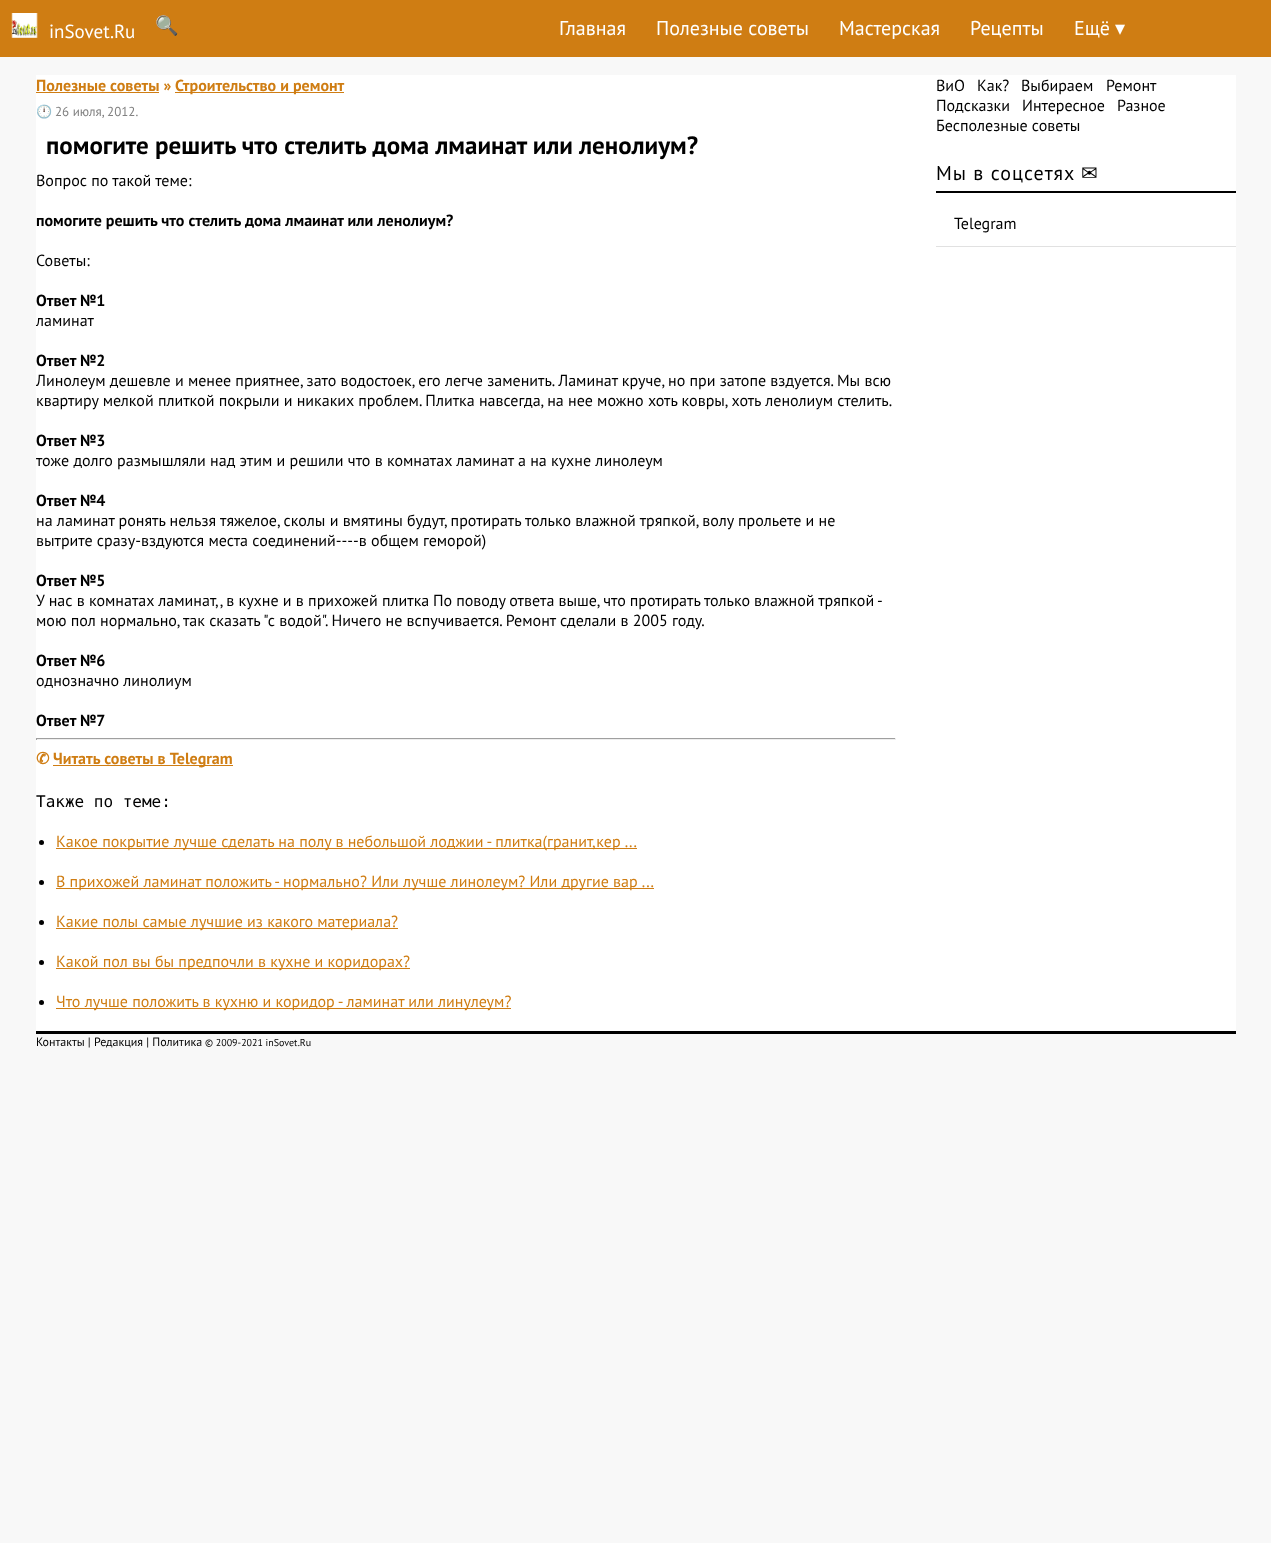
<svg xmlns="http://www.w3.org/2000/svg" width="1271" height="1543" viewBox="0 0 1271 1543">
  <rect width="100%" height="100%" fill="rgb(248,248,248)"/>
  <rect x="0" y="0" width="1271" height="57" fill="rgb(207,125,19)"/>
  <image x="11" y="13" width="27" height="25" href="pic1.png"/>
  <text x="49" y="38" font-family="PT Sans" font-size="19" fill="rgb(255,255,255)">inSovet.Ru</text>
  <text x="155" y="32" font-family="Noto Color Emoji" font-size="19" fill="rgb(255,255,255)">🔍</text>
  <g font-family="PT Sans" font-size="20" fill="rgb(255,255,255)">
    <text x="559" y="35">Главная</text>
    <text x="656" y="35">Полезные советы</text>
    <text x="839" y="35">Мастерская</text>
    <text x="970" y="35">Рецепты</text>
    <text x="1074" y="35">Ещё</text>
  </g>
  <text x="1115" y="35" font-family="DejaVu Sans" font-size="20" fill="rgb(255,255,255)">▾</text>
  <rect x="36" y="75" width="1200" height="956" fill="rgb(255,255,255)"/>
  <text x="36" y="91" font-family="PT Sans" font-size="16" font-weight="bold" fill="rgb(207,125,19)">Полезные советы »</text>
  <rect x="36" y="92" width="123" height="1" fill="rgb(207,125,19)"/>
  <rect x="175" y="92" width="169" height="1" fill="rgb(207,125,19)"/>
  <text x="175" y="91" font-family="PT Sans" font-size="16" font-weight="bold" fill="rgb(207,125,19)">Строительство и ремонт</text>
  <text x="36" y="116" font-family="Noto Color Emoji" font-size="13" fill="rgb(129,129,129)">🕛</text>
  <text x="55" y="116" font-family="PT Sans" font-size="13" fill="rgb(129,129,129)">26 июля, 2012.</text>
  <text x="46" y="154" font-family="PT Sans" font-size="25" font-weight="bold" fill="rgb(0,0,0)">помогите решить что стелить дома лмаинат или ленолиум?</text>
  <text x="36" y="186" font-family="PT Sans" font-size="16" fill="rgb(0,0,0)">Вопрос по такой теме:</text>
  <text x="36" y="226" font-family="PT Sans" font-size="16" font-weight="bold" fill="rgb(0,0,0)">помогите решить что стелить дома лмаинат или ленолиум?</text>
  <text x="36" y="266" font-family="PT Sans" font-size="16" fill="rgb(0,0,0)">Советы:</text>
  <text x="36" y="306" font-family="PT Sans" font-size="16" font-weight="bold" fill="rgb(0,0,0)">Ответ №1</text>
  <text x="36" y="326" font-family="PT Sans" font-size="16" fill="rgb(0,0,0)">ламинат</text>
  <text x="36" y="366" font-family="PT Sans" font-size="16" font-weight="bold" fill="rgb(0,0,0)">Ответ №2</text>
  <g font-family="PT Sans" font-size="16" fill="rgb(0,0,0)">
    <text>
      <tspan x="36" y="386">Линолеум дешевле и менее приятнее, зато водостоек, его легче заменить. Ламинат круче, но при затопе вздуется. Мы всю</tspan>
      <tspan x="36" y="406">квартиру мелкой плиткой покрыли и никаких проблем. Плитка навсегда, на нее можно хоть ковры, хоть ленолиум стелить.</tspan>
    </text>
  </g>
  <text x="36" y="446" font-family="PT Sans" font-size="16" font-weight="bold" fill="rgb(0,0,0)">Ответ №3</text>
  <text x="36" y="466" font-family="PT Sans" font-size="16" fill="rgb(0,0,0)">тоже долго размышляли над этим и решили что в комнатах ламинат а на кухне линолеум</text>
  <text x="36" y="506" font-family="PT Sans" font-size="16" font-weight="bold" fill="rgb(0,0,0)">Ответ №4</text>
  <g font-family="PT Sans" font-size="16" fill="rgb(0,0,0)">
    <text>
      <tspan x="36" y="526">на ламинат ронять нельзя тяжелое, сколы и вмятины будут, протирать только влажной тряпкой, волу прольете и не</tspan>
      <tspan x="36" y="546">вытрите сразу-вздуются места соединений----в общем геморой)</tspan>
    </text>
  </g>
  <text x="36" y="586" font-family="PT Sans" font-size="16" font-weight="bold" fill="rgb(0,0,0)">Ответ №5</text>
  <g font-family="PT Sans" font-size="16" fill="rgb(0,0,0)">
    <text x="36" y="606">У нас в комнатах ламинат,, в кухне и в прихожей плитка</text>
    <text x="433" y="606" word-spacing="-0.25">По поводу ответа выше, что протирать только влажной тряпкой -</text>
    <text x="36" y="626">мою пол нормально, так сказать "с водой". Ничего не вспучивается. Ремонт сделали в 2005 году.</text>
  </g>
  <text x="36" y="666" font-family="PT Sans" font-size="16" font-weight="bold" fill="rgb(0,0,0)">Ответ №6</text>
  <text x="36" y="686" font-family="PT Sans" font-size="16" fill="rgb(0,0,0)">однозначно линолиум</text>
  <text x="36" y="726" font-family="PT Sans" font-size="16" font-weight="bold" fill="rgb(0,0,0)">Ответ №7</text>
  <rect x="36" y="738" width="860" height="1" fill="rgb(159,159,159)"/>
  <rect x="895" y="738" width="1" height="2" fill="rgb(238,238,238)"/>
  <rect x="36" y="739" width="860" height="1" fill="rgb(238,238,238)"/>
  <rect x="36" y="738" width="1" height="2" fill="rgb(159,159,159)"/>
  <text x="36" y="764" font-family="DejaVu Sans" font-size="16" font-weight="bold" fill="rgb(207,125,19)">✆</text>
  <rect x="53" y="765" width="180" height="1" fill="rgb(207,125,19)"/>
  <text x="53" y="764" font-family="PT Sans" font-size="16" font-weight="bold" fill="rgb(207,125,19)">Читать советы в Telegram</text>
  <text x="36" y="807" font-family="DejaVu Sans Mono" font-size="16" fill="rgb(0,0,0)">Также по теме:</text>
  <circle cx="41.5" cy="842.5" r="2.5" fill="rgb(0,0,0)"/>
  <rect x="56" y="848" width="581" height="1" fill="rgb(207,125,19)"/>
  <text x="56" y="847" font-family="PT Sans" font-size="16" fill="rgb(207,125,19)">Какое покрытие лучше сделать на полу в небольшой лоджии - плитка(гранит,кер ...</text>
  <circle cx="41.5" cy="882.5" r="2.5" fill="rgb(0,0,0)"/>
  <rect x="56" y="888" width="598" height="1" fill="rgb(207,125,19)"/>
  <text x="56" y="887" font-family="PT Sans" font-size="16" fill="rgb(207,125,19)">В прихожей ламинат положить - нормально? Или лучше линолеум? Или другие вар ...</text>
  <circle cx="41.5" cy="922.5" r="2.5" fill="rgb(0,0,0)"/>
  <rect x="56" y="928" width="342" height="1" fill="rgb(207,125,19)"/>
  <text x="56" y="927" font-family="PT Sans" font-size="16" fill="rgb(207,125,19)">Какие полы самые лучшие из какого материала?</text>
  <circle cx="41.5" cy="962.5" r="2.5" fill="rgb(0,0,0)"/>
  <rect x="56" y="968" width="354" height="1" fill="rgb(207,125,19)"/>
  <text x="56" y="967" font-family="PT Sans" font-size="16" fill="rgb(207,125,19)">Какой пол вы бы предпочли в кухне и коридорах?</text>
  <circle cx="41.5" cy="1002.5" r="2.5" fill="rgb(0,0,0)"/>
  <rect x="56" y="1008" width="455" height="1" fill="rgb(207,125,19)"/>
  <text x="56" y="1007" font-family="PT Sans" font-size="16" fill="rgb(207,125,19)">Что лучше положить в кухню и коридор - ламинат или линулеум?</text>
  <g font-family="PT Sans" font-size="16" fill="rgb(0,0,0)">
    <text x="936" y="91">ВиО</text>
    <text x="977" y="91">Как?</text>
    <text x="1021" y="91">Выбираем</text>
    <text x="1106" y="91">Ремонт</text>
    <text x="936" y="111">Подсказки</text>
    <text x="1022" y="111">Интересное</text>
    <text x="1117" y="111">Разное</text>
    <text x="936" y="131">Бесполезные советы</text>
  </g>
  <rect x="936" y="191" width="300" height="2" fill="rgb(0,0,0)"/>
  <text x="936" y="180" font-family="PT Sans" font-size="20" letter-spacing="1" fill="rgb(0,0,0)">Мы в соцсетях</text>
  <text x="1081" y="180" font-family="DejaVu Sans" font-size="20" letter-spacing="1" fill="rgb(0,0,0)">✉</text>
  <rect x="936" y="246" width="300" height="1" fill="rgb(225,225,225)"/>
  <text x="954" y="229" font-family="PT Sans" font-size="16" fill="rgb(0,0,0)">Telegram</text>
  <rect x="36" y="1031" width="1200" height="3" fill="rgb(0,0,0)"/>
  <text x="36" y="1046" font-family="PT Sans" font-size="12" fill="rgb(0,0,0)">Контакты | Редакция | Политика</text>
  <text x="205" y="1046" font-family="PT Sans" font-size="10" fill="rgb(0,0,0)">© 2009-2021 inSovet.Ru</text>
</svg>
